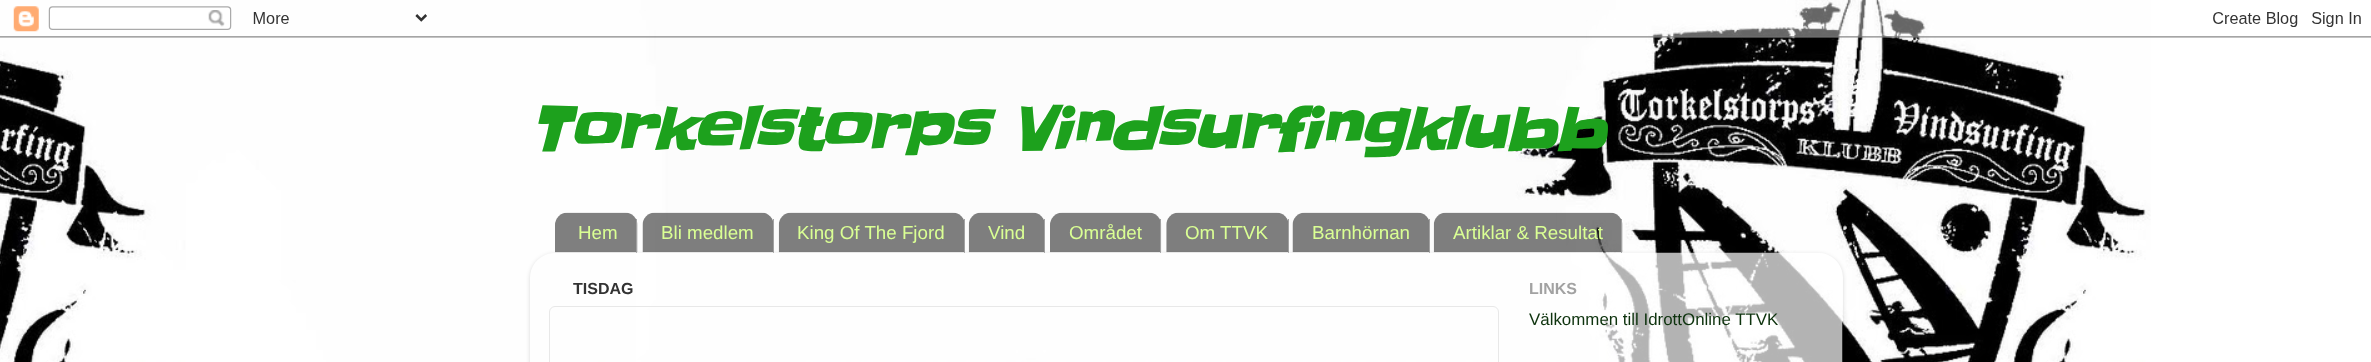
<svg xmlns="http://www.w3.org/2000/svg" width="2371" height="362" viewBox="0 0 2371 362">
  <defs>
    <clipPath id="clip1"><path d="M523 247H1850V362H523ZM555 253H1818C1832 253 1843 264 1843 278V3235H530V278C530 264 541 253 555 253Z" clip-rule="evenodd"/></clipPath>
  </defs>
  <rect width="100%" height="100%" fill="rgb(255,255,255)"/>
  <image x="0" y="0" width="2151" height="362" href="pic1.png"/>
  <image x="0" y="0" width="2371" height="38" href="pic2.png"/>
  <text x="529" y="151" font-family="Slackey" font-size="58.75" font-weight="bold" font-style="italic" fill="rgb(29,161,29)">Torkelstorps Vindsurfingklubb</text>
  <image x="555" y="212" width="83" height="41" href="pic3.png"/>
  <rect x="636" y="219" width="1" height="34" fill="rgb(162,162,162)"/>
  <text x="578" y="239" font-family="Liberation Sans" font-size="18.75" fill="rgb(218,255,148)">Hem</text>
  <image x="642" y="212" width="131" height="41" href="pic4.png"/>
  <rect x="773" y="219" width="1" height="34" fill="rgb(162,162,162)"/>
  <text x="661" y="239" font-family="Liberation Sans" font-size="18.75" fill="rgb(218,255,148)">Bli medlem</text>
  <image x="778" y="212" width="186" height="41" href="pic5.png"/>
  <rect x="964" y="219" width="1" height="34" fill="rgb(162,162,162)"/>
  <text x="797" y="239" font-family="Liberation Sans" font-size="18.75" fill="rgb(218,255,148)">King Of The Fjord</text>
  <image x="968" y="212" width="76" height="41" href="pic6.png"/>
  <rect x="1044" y="219" width="1" height="34" fill="rgb(162,162,162)"/>
  <text x="988" y="239" font-family="Liberation Sans" font-size="18.75" fill="rgb(218,255,148)">Vind</text>
  <image x="1050" y="212" width="112" height="41" href="pic7.png"/>
  <rect x="1160" y="219" width="1" height="34" fill="rgb(162,162,162)"/>
  <text x="1069" y="239" font-family="Liberation Sans" font-size="18.75" fill="rgb(218,255,148)">Området</text>
  <image x="1166" y="212" width="122" height="41" href="pic8.png"/>
  <rect x="1288" y="219" width="1" height="34" fill="rgb(162,162,162)"/>
  <text x="1185" y="239" font-family="Liberation Sans" font-size="18.75" fill="rgb(218,255,148)">Om TTVK</text>
  <image x="1292" y="212" width="137" height="41" href="pic9.png"/>
  <rect x="1429" y="219" width="1" height="34" fill="rgb(162,162,162)"/>
  <text x="1312" y="239" font-family="Liberation Sans" font-size="18.75" fill="rgb(218,255,148)">Barnhörnan</text>
  <image x="1433" y="212" width="190" height="41" href="pic10.png"/>
  <rect x="1621" y="219" width="1" height="34" fill="rgb(162,162,162)"/>
  <text x="1453" y="239" font-family="Liberation Sans" font-size="18.75" fill="rgb(218,255,148)">Artiklar &amp; Resultat</text>
  <g clip-path="url(#clip1)">
    <rect x="530" y="254" width="1313" height="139" rx="25" fill="rgba(0,0,0,0.15)" filter="blur(2px)"/>
  </g>
  <image x="636" y="252" width="1207" height="110" href="pic11.png"/>
  <text x="573" y="294" font-family="Liberation Sans" font-size="16" font-weight="bold" fill="rgb(51,51,51)">TISDAG</text>
  <rect x="549.5" y="306.5" width="949" height="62" rx="5.5" fill="none" stroke="rgb(232,232,232)"/>
  <text x="1529" y="294" font-family="Liberation Sans" font-size="16" font-weight="bold" fill="rgb(162,162,162)">LINKS</text>
  <text x="1529" y="325" font-family="Liberation Sans" font-size="16.9" fill="rgb(14,51,14)">Välkommen till IdrottOnline TTVK</text>
</svg>
